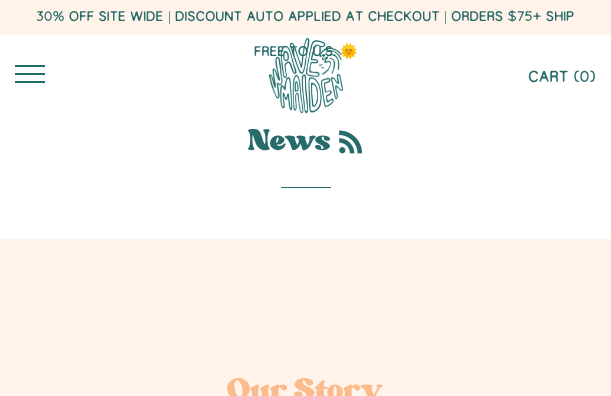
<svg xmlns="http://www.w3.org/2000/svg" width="611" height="396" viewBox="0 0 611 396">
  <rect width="100%" height="100%" fill="rgb(255,255,255)"/>
  <rect x="0" y="0" width="611" height="35" fill="rgb(255,243,234)"/>
  <text x="36" y="21" font-family="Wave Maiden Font" font-size="14" fill="rgb(39,108,106)">30% off site wide</text>
  <text x="168" y="21" font-family="Liberation Serif" font-size="14" fill="rgb(39,108,106)">|</text>
  <text x="175" y="21" font-family="Wave Maiden Font" font-size="14" fill="rgb(39,108,106)">discount auto applied at checkout</text>
  <text x="444" y="21" font-family="Liberation Serif" font-size="14" fill="rgb(39,108,106)">|</text>
  <text x="451" y="21" font-family="Wave Maiden Font" font-size="14" fill="rgb(39,108,106)">Orders $75+ SHIP</text>
  <image x="268" y="38" width="75" height="76" href="pic1.png"/>
  <text x="254" y="56" font-family="Wave Maiden Font" font-size="14" fill="rgb(39,108,106)">FREE TO U.S.</text>
  <text x="340" y="56" font-family="Noto Color Emoji" font-size="14" fill="rgb(39,108,106)">🌞</text>
  <rect x="15" y="73" width="30" height="2" fill="rgb(32,108,105)"/>
  <rect x="15" y="65" width="30" height="2" fill="rgb(32,108,105)"/>
  <rect x="15" y="81" width="30" height="2" fill="rgb(32,108,105)"/>
  <text x="528" y="82" font-family="Wave Maiden Font" font-size="16" fill="rgb(39,108,106)">CART (0)</text>
  <text x="248" y="152" font-family="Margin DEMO" font-size="42" fill="rgb(39,108,106)">News</text>
  <image x="339" y="130" width="23" height="24" href="pic2.png"/>
  <rect x="281" y="187" width="50" height="1" fill="rgb(39,108,106)"/>
  <rect x="0" y="239" width="611" height="157" fill="rgb(255,243,234)"/>
  <text x="227" y="401" font-family="Margin DEMO" font-size="42" fill="rgb(251,188,141)">Our Story</text>
</svg>
